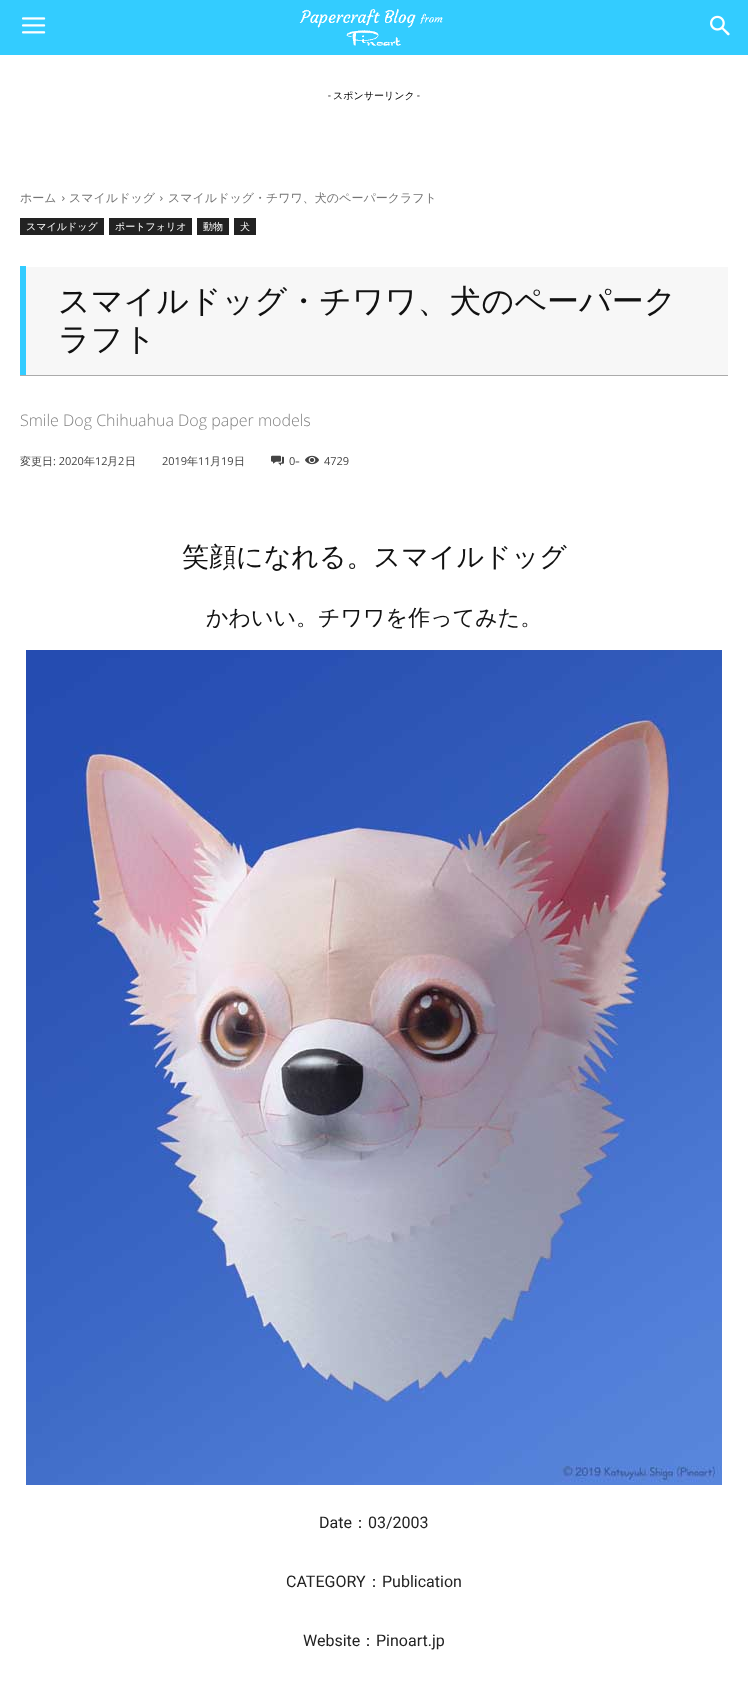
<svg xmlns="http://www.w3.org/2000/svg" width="748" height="1690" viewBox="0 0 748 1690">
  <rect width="100%" height="100%" fill="rgb(255,255,255)"/>
  <rect x="0" y="0" width="748" height="55" fill="rgb(51,204,255)"/>
  <image x="22" y="17" width="24" height="17" href="pic1.png"/>
  <image x="299" y="8" width="144" height="39" href="pic2.png"/>
  <image x="710" y="15" width="20" height="21" href="pic3.png"/>
  <text x="328" y="99" font-family="Roboto" font-size="10" fill="rgb(0,0,0)">-</text>
  <text x="333" y="99" font-family="WenQuanYi Zen Hei" font-size="10" font-weight="500" fill="rgb(0,0,0)">スポンサーリンク</text>
  <text x="417" y="99" font-family="Roboto" font-size="10" fill="rgb(0,0,0)">-</text>
  <text x="20" y="202" font-family="WenQuanYi Zen Hei" font-size="12" font-weight="500" fill="rgb(116,116,116)">ホーム</text>
  <image x="62" y="196" width="3" height="5" href="pic4.png"/>
  <text x="69" y="202" font-family="WenQuanYi Zen Hei" font-size="12" font-weight="500" fill="rgb(116,116,116)">スマイルドッグ</text>
  <image x="160" y="196" width="3" height="5" href="pic4.png"/>
  <text x="168" y="202" font-family="WenQuanYi Zen Hei" font-size="12" font-weight="500" fill="rgb(116,116,116)">スマイルドッグ・チワワ、犬のペーパークラフト</text>
  <rect x="20" y="218" width="84" height="17" fill="rgb(34,34,34)"/>
  <text x="26" y="230" font-family="WenQuanYi Zen Hei" font-size="10" font-weight="500" fill="rgb(255,255,255)">スマイルドッグ</text>
  <rect x="109" y="218" width="83" height="17" fill="rgb(34,34,34)"/>
  <text x="115" y="230" font-family="WenQuanYi Zen Hei" font-size="10" font-weight="500" fill="rgb(255,255,255)">ポートフォリオ</text>
  <rect x="197" y="218" width="32" height="17" fill="rgb(34,34,34)"/>
  <text x="203" y="230" font-family="WenQuanYi Zen Hei" font-size="10" font-weight="500" fill="rgb(255,255,255)">動物</text>
  <rect x="234" y="218" width="22" height="17" fill="rgb(34,34,34)"/>
  <text x="240" y="230" font-family="WenQuanYi Zen Hei" font-size="10" font-weight="500" fill="rgb(255,255,255)">犬</text>
  <rect x="20" y="267" width="708" height="109" fill="rgba(0,0,0,0.33)" filter="blur(0.5px)"/>
  <rect x="26" y="267" width="702" height="108" fill="rgb(247,247,247)"/>
  <rect x="20" y="266" width="6" height="109" fill="rgb(51,204,255)"/>
  <g font-family="WenQuanYi Zen Hei" font-size="32" font-weight="500" fill="rgb(17,17,17)">
    <text>
      <tspan x="58" y="312">スマイルドッグ・チワワ、犬のペーパーク</tspan>
      <tspan x="58" y="350">ラフト</tspan>
    </text>
  </g>
  <text x="20" y="426" font-family="Open Sans" font-size="16" font-weight="300" fill="rgb(130,130,130)">Smile Dog Chihuahua Dog paper models</text>
  <text x="20" y="465" font-family="WenQuanYi Zen Hei" font-size="11" font-weight="500" fill="rgb(68,68,68)">変更日</text>
  <text x="53" y="465" font-family="Open Sans" font-size="11" fill="rgb(68,68,68)">: 2020</text>
  <text x="84" y="465" font-family="WenQuanYi Zen Hei" font-size="11" font-weight="500" fill="rgb(68,68,68)">年</text>
  <text x="95" y="465" font-family="Open Sans" font-size="11" fill="rgb(68,68,68)">12</text>
  <text x="107" y="465" font-family="WenQuanYi Zen Hei" font-size="11" font-weight="500" fill="rgb(68,68,68)">月</text>
  <text x="118" y="465" font-family="Open Sans" font-size="11" fill="rgb(68,68,68)">2</text>
  <text x="125" y="465" font-family="WenQuanYi Zen Hei" font-size="11" font-weight="500" fill="rgb(68,68,68)">日</text>
  <text x="162" y="465" font-family="Open Sans" font-size="11" fill="rgb(68,68,68)">2019</text>
  <text x="187" y="465" font-family="WenQuanYi Zen Hei" font-size="11" font-weight="500" fill="rgb(68,68,68)">年</text>
  <text x="198" y="465" font-family="Open Sans" font-size="11" fill="rgb(68,68,68)">11</text>
  <text x="210" y="465" font-family="WenQuanYi Zen Hei" font-size="11" font-weight="500" fill="rgb(68,68,68)">月</text>
  <text x="221" y="465" font-family="Open Sans" font-size="11" fill="rgb(68,68,68)">19</text>
  <text x="234" y="465" font-family="WenQuanYi Zen Hei" font-size="11" font-weight="500" fill="rgb(68,68,68)">日</text>
  <image x="271" y="455" width="13" height="11" href="pic5.png"/>
  <text x="289" y="465" font-family="Open Sans" font-size="11" fill="rgb(68,68,68)">0</text>
  <text x="295" y="466" font-family="Open Sans" font-size="15" fill="rgb(102,102,102)">-</text>
  <image x="305" y="455" width="14" height="10" href="pic6.png"/>
  <text x="324" y="465" font-family="Open Sans" font-size="11" fill="rgb(68,68,68)">4729</text>
  <text x="182" y="566" font-family="WenQuanYi Zen Hei" font-size="27" font-weight="500" fill="rgb(17,17,17)">笑顔になれる。スマイルドッグ</text>
  <text x="206" y="625" font-family="WenQuanYi Zen Hei" font-size="22" font-weight="500" fill="rgb(17,17,17)">かわいい。チワワを作ってみた。</text>
  <image x="26" y="650" width="696" height="835" href="pic7.png"/>
  <text x="319" y="1528" font-family="Roboto" font-size="16" fill="rgb(34,34,34)">Date</text>
  <text x="352" y="1528" font-family="WenQuanYi Zen Hei" font-size="16" font-weight="500" fill="rgb(34,34,34)">：</text>
  <g font-family="Roboto" font-size="16" fill="rgb(34,34,34)">
    <text x="368" y="1528">03/2003</text>
    <text x="286" y="1587">CATEGORY</text>
  </g>
  <text x="366" y="1587" font-family="WenQuanYi Zen Hei" font-size="16" font-weight="500" fill="rgb(34,34,34)">：</text>
  <g font-family="Roboto" font-size="16" fill="rgb(34,34,34)">
    <text x="382" y="1587">Publication</text>
    <text x="303" y="1646">Website</text>
  </g>
  <text x="360" y="1646" font-family="WenQuanYi Zen Hei" font-size="16" font-weight="500" fill="rgb(34,34,34)">：</text>
  <text x="376" y="1646" font-family="Roboto" font-size="16" fill="rgb(34,34,34)">Pinoart.jp</text>
</svg>
